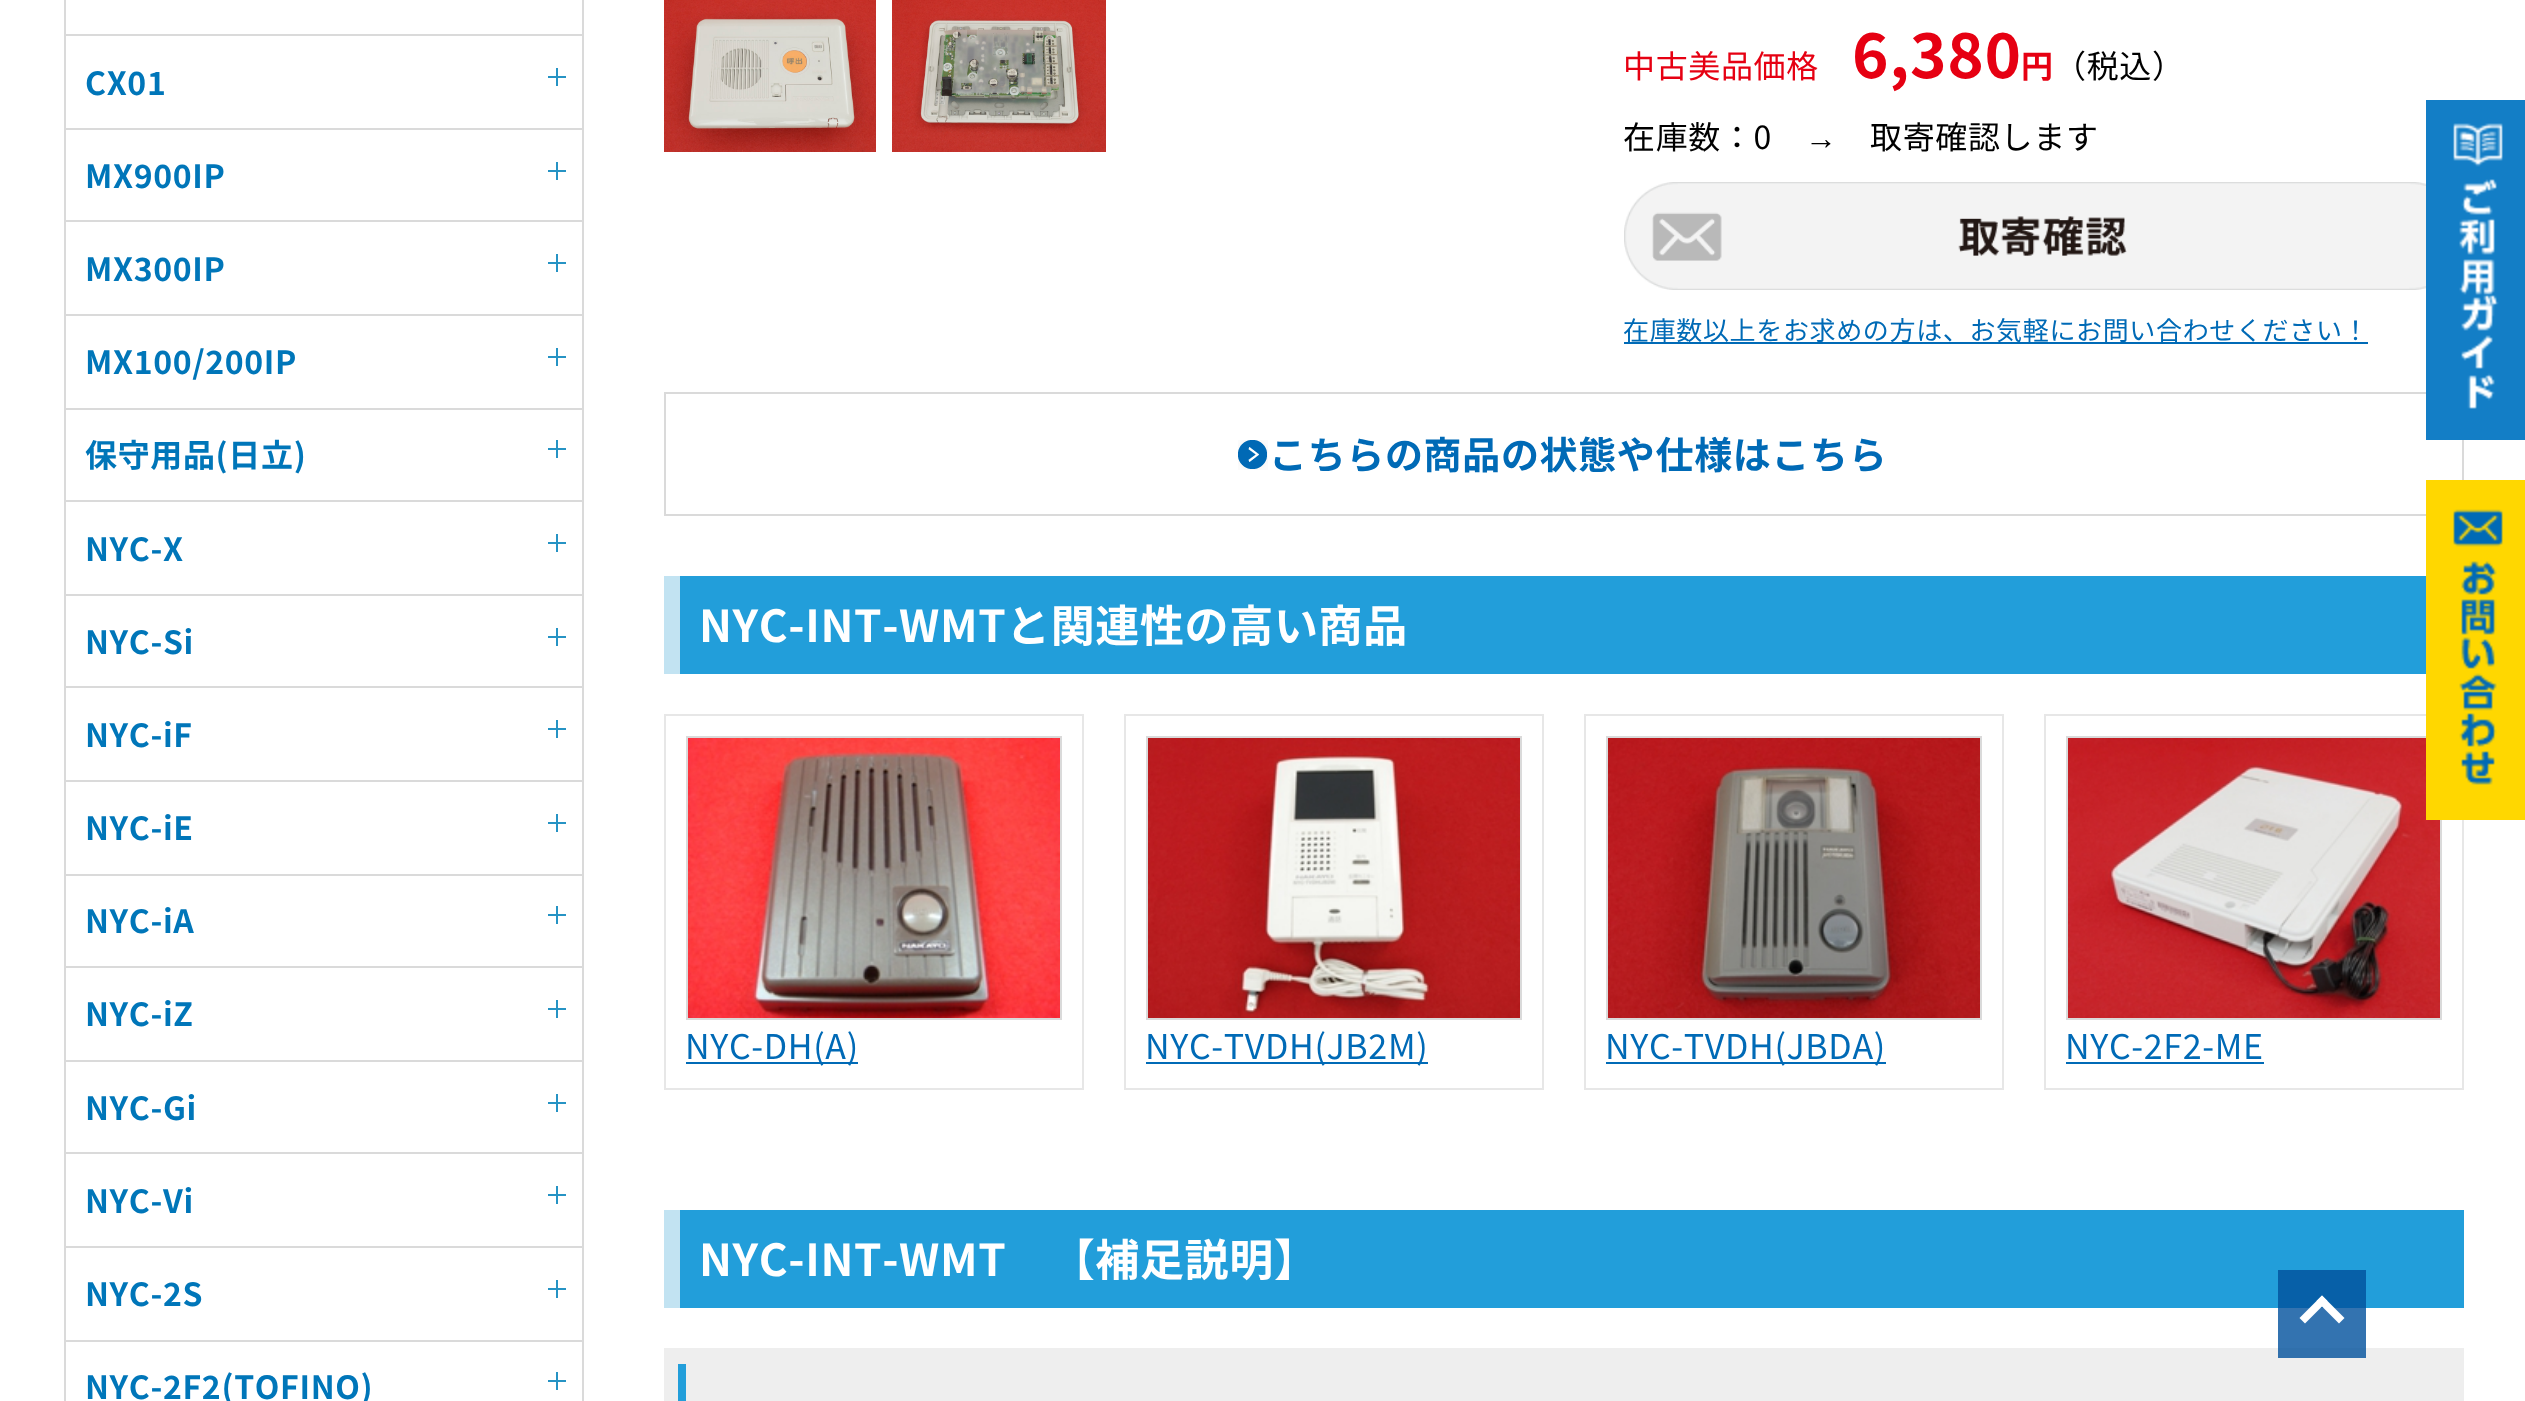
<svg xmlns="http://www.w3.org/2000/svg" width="2525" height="1401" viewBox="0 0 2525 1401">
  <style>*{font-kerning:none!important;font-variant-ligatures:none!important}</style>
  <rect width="100%" height="100%" fill="rgb(255,255,255)"/>
  <rect x="2278" y="1308" width="88" height="40" fill="rgb(51,115,176)"/>
  <rect x="582" y="0" width="2" height="1401" fill="rgb(218,218,218)"/>
  <rect x="64" y="34" width="520" height="2" fill="rgb(218,218,218)"/>
  <rect x="64" y="0" width="2" height="36" fill="rgb(218,218,218)"/>
  <rect x="64" y="128" width="520" height="2" fill="rgb(218,218,218)"/>
  <rect x="64" y="36" width="2" height="94" fill="rgb(218,218,218)"/>
  <text x="85" y="95" font-family="'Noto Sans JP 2'" font-size="32" font-weight="100" letter-spacing="0.65" fill="rgb(0,118,185)">CX01</text>
  <rect x="556" y="68" width="2" height="18" fill="rgb(38,147,196)"/>
  <rect x="548" y="76" width="18" height="2" fill="rgb(38,147,196)"/>
  <rect x="64" y="220" width="520" height="2" fill="rgb(218,218,218)"/>
  <rect x="64" y="130" width="2" height="92" fill="rgb(218,218,218)"/>
  <text x="85" y="188" font-family="'Noto Sans JP 2'" font-size="32" font-weight="100" letter-spacing="0.65" fill="rgb(0,118,185)">MX900IP</text>
  <rect x="556" y="162" width="2" height="18" fill="rgb(38,147,196)"/>
  <rect x="548" y="170" width="18" height="2" fill="rgb(38,147,196)"/>
  <rect x="64" y="314" width="520" height="2" fill="rgb(218,218,218)"/>
  <rect x="64" y="222" width="2" height="94" fill="rgb(218,218,218)"/>
  <text x="85" y="281" font-family="'Noto Sans JP 2'" font-size="32" font-weight="100" letter-spacing="0.65" fill="rgb(0,118,185)">MX300IP</text>
  <rect x="556" y="254" width="2" height="18" fill="rgb(38,147,196)"/>
  <rect x="548" y="262" width="18" height="2" fill="rgb(38,147,196)"/>
  <rect x="64" y="408" width="520" height="2" fill="rgb(218,218,218)"/>
  <rect x="64" y="316" width="2" height="94" fill="rgb(218,218,218)"/>
  <text x="85" y="374" font-family="'Noto Sans JP 2'" font-size="32" font-weight="100" letter-spacing="0.65" fill="rgb(0,118,185)">MX100/200IP</text>
  <rect x="556" y="348" width="2" height="18" fill="rgb(38,147,196)"/>
  <rect x="548" y="356" width="18" height="2" fill="rgb(38,147,196)"/>
  <rect x="64" y="500" width="520" height="2" fill="rgb(218,218,218)"/>
  <rect x="64" y="410" width="2" height="92" fill="rgb(218,218,218)"/>
  <text x="85" y="467" font-family="'Noto Sans JP 2'" font-size="32" font-weight="100" letter-spacing="0.65" fill="rgb(0,118,185)">保守用品(日立)</text>
  <rect x="556" y="440" width="2" height="18" fill="rgb(38,147,196)"/>
  <rect x="548" y="448" width="18" height="2" fill="rgb(38,147,196)"/>
  <rect x="64" y="594" width="520" height="2" fill="rgb(218,218,218)"/>
  <rect x="64" y="502" width="2" height="94" fill="rgb(218,218,218)"/>
  <text x="85" y="561" font-family="'Noto Sans JP 2'" font-size="32" font-weight="100" letter-spacing="0.65" fill="rgb(0,118,185)">NYC-X</text>
  <rect x="556" y="534" width="2" height="18" fill="rgb(38,147,196)"/>
  <rect x="548" y="542" width="18" height="2" fill="rgb(38,147,196)"/>
  <rect x="64" y="686" width="520" height="2" fill="rgb(218,218,218)"/>
  <rect x="64" y="596" width="2" height="92" fill="rgb(218,218,218)"/>
  <text x="85" y="654" font-family="'Noto Sans JP 2'" font-size="32" font-weight="100" letter-spacing="0.65" fill="rgb(0,118,185)">NYC-Si</text>
  <rect x="556" y="628" width="2" height="18" fill="rgb(38,147,196)"/>
  <rect x="548" y="636" width="18" height="2" fill="rgb(38,147,196)"/>
  <rect x="64" y="780" width="520" height="2" fill="rgb(218,218,218)"/>
  <rect x="64" y="688" width="2" height="94" fill="rgb(218,218,218)"/>
  <text x="85" y="747" font-family="'Noto Sans JP 2'" font-size="32" font-weight="100" letter-spacing="0.65" fill="rgb(0,118,185)">NYC-iF</text>
  <rect x="556" y="720" width="2" height="18" fill="rgb(38,147,196)"/>
  <rect x="548" y="728" width="18" height="2" fill="rgb(38,147,196)"/>
  <rect x="64" y="874" width="520" height="2" fill="rgb(218,218,218)"/>
  <rect x="64" y="782" width="2" height="94" fill="rgb(218,218,218)"/>
  <text x="85" y="840" font-family="'Noto Sans JP 2'" font-size="32" font-weight="100" letter-spacing="0.65" fill="rgb(0,118,185)">NYC-iE</text>
  <rect x="556" y="814" width="2" height="18" fill="rgb(38,147,196)"/>
  <rect x="548" y="822" width="18" height="2" fill="rgb(38,147,196)"/>
  <rect x="64" y="966" width="520" height="2" fill="rgb(218,218,218)"/>
  <rect x="64" y="876" width="2" height="92" fill="rgb(218,218,218)"/>
  <text x="85" y="933" font-family="'Noto Sans JP 2'" font-size="32" font-weight="100" letter-spacing="0.65" fill="rgb(0,118,185)">NYC-iA</text>
  <rect x="556" y="906" width="2" height="18" fill="rgb(38,147,196)"/>
  <rect x="548" y="914" width="18" height="2" fill="rgb(38,147,196)"/>
  <rect x="64" y="1060" width="520" height="2" fill="rgb(218,218,218)"/>
  <rect x="64" y="968" width="2" height="94" fill="rgb(218,218,218)"/>
  <text x="85" y="1026" font-family="'Noto Sans JP 2'" font-size="32" font-weight="100" letter-spacing="0.65" fill="rgb(0,118,185)">NYC-iZ</text>
  <rect x="556" y="1000" width="2" height="18" fill="rgb(38,147,196)"/>
  <rect x="548" y="1008" width="18" height="2" fill="rgb(38,147,196)"/>
  <rect x="64" y="1152" width="520" height="2" fill="rgb(218,218,218)"/>
  <rect x="64" y="1062" width="2" height="92" fill="rgb(218,218,218)"/>
  <text x="85" y="1120" font-family="'Noto Sans JP 2'" font-size="32" font-weight="100" letter-spacing="0.65" fill="rgb(0,118,185)">NYC-Gi</text>
  <rect x="556" y="1094" width="2" height="18" fill="rgb(38,147,196)"/>
  <rect x="548" y="1102" width="18" height="2" fill="rgb(38,147,196)"/>
  <rect x="64" y="1246" width="520" height="2" fill="rgb(218,218,218)"/>
  <rect x="64" y="1154" width="2" height="94" fill="rgb(218,218,218)"/>
  <text x="85" y="1213" font-family="'Noto Sans JP 2'" font-size="32" font-weight="100" letter-spacing="0.65" fill="rgb(0,118,185)">NYC-Vi</text>
  <rect x="556" y="1186" width="2" height="18" fill="rgb(38,147,196)"/>
  <rect x="548" y="1194" width="18" height="2" fill="rgb(38,147,196)"/>
  <rect x="64" y="1340" width="520" height="2" fill="rgb(218,218,218)"/>
  <rect x="64" y="1248" width="2" height="153" fill="rgb(218,218,218)"/>
  <text x="85" y="1306" font-family="'Noto Sans JP 2'" font-size="32" font-weight="100" letter-spacing="0.65" fill="rgb(0,118,185)">NYC-2S</text>
  <rect x="556" y="1280" width="2" height="18" fill="rgb(38,147,196)"/>
  <rect x="548" y="1288" width="18" height="2" fill="rgb(38,147,196)"/>
  <text x="85" y="1399" font-family="'Noto Sans JP 2'" font-size="32" font-weight="100" letter-spacing="0.65" fill="rgb(0,118,185)">NYC-2F2(TOFINO)</text>
  <rect x="556" y="1372" width="2" height="18" fill="rgb(38,147,196)"/>
  <rect x="548" y="1380" width="18" height="2" fill="rgb(38,147,196)"/>
  <image x="664" y="0" width="212" height="152" href="pic1.png"/>
  <image x="892" y="0" width="214" height="152" href="pic2.png"/>
  <text x="1623" y="78" font-family="Noto Sans JP" font-size="32" font-weight="100" letter-spacing="0.65" fill="rgb(230,0,18)">中古美品価格</text>
  <text x="1852" y="78" font-family="'Noto Sans JP 2'" font-size="62" font-weight="100" letter-spacing="0.65" fill="rgb(230,0,18)">6,380</text>
  <text x="2021" y="78" font-family="'Noto Sans JP 2'" font-size="32" font-weight="100" letter-spacing="0.65" fill="rgb(230,0,18)">円</text>
  <g font-family="Noto Sans JP" font-size="32" font-weight="100" letter-spacing="0.65" fill="rgb(0,0,0)">
    <text x="2054" y="78">（税込）</text>
    <text x="1623" y="149">在庫数：0</text>
  </g>
  <text x="1805" y="149" font-family="Liberation Sans" font-size="32" letter-spacing="0.65" fill="rgb(0,0,0)">→</text>
  <text x="1870" y="149" font-family="Noto Sans JP" font-size="32" font-weight="100" letter-spacing="0.65" fill="rgb(0,0,0)">取寄確認します</text>
  <image x="1624" y="182" width="802" height="108" href="pic3.png"/>
  <rect x="1624" y="342" width="744" height="2" fill="rgb(0,106,182)"/>
  <text x="1623" y="340" font-family="Noto Sans JP" font-size="26" font-weight="100" letter-spacing="0.65" fill="rgb(0,106,182)">在庫数以上をお求めの方は、お気軽にお問い合わせください！</text>
  <rect x="665" y="393" width="1798" height="122" fill="none" stroke="rgb(218,218,218)" stroke-width="2"/>
  <image x="1238" y="440" width="30" height="30" href="pic4.png"/>
  <text x="1269" y="469" font-family="'Noto Sans JP 2'" font-size="38" font-weight="100" letter-spacing="0.65" fill="rgb(0,106,182)">こちらの商品の状態や仕様はこちら</text>
  <rect x="680" y="576" width="1746" height="98" fill="rgb(34,158,218)"/>
  <rect x="664" y="576" width="16" height="98" fill="rgb(194,227,242)"/>
  <text x="699" y="642" font-family="'Noto Sans JP 2'" font-size="44" font-weight="100" letter-spacing="0.65" fill="rgb(255,255,255)">NYC-INT-WMT</text>
  <text x="1006" y="642" font-family="'Noto Sans JP 2'" font-size="44" font-weight="100" letter-spacing="0.65" fill="rgb(255,255,255)">と関連性の高い商品</text>
  <rect x="665" y="715" width="418" height="374" fill="none" stroke="rgb(231,231,231)" stroke-width="2"/>
  <rect x="687" y="737" width="374" height="282" fill="none" stroke="rgb(218,218,218)" stroke-width="2"/>
  <image x="688" y="738" width="372" height="280" href="pic5.png"/>
  <rect x="686" y="1062" width="172" height="2" fill="rgb(0,106,182)"/>
  <text x="685" y="1059" font-family="Noto Sans JP" font-size="34" font-weight="100" letter-spacing="0.65" fill="rgb(0,106,182)">NYC-DH(A)</text>
  <rect x="1125" y="715" width="418" height="374" fill="none" stroke="rgb(231,231,231)" stroke-width="2"/>
  <rect x="1147" y="737" width="374" height="282" fill="none" stroke="rgb(218,218,218)" stroke-width="2"/>
  <image x="1148" y="738" width="372" height="280" href="pic6.png"/>
  <rect x="1146" y="1062" width="282" height="2" fill="rgb(0,106,182)"/>
  <text x="1145" y="1059" font-family="Noto Sans JP" font-size="34" font-weight="100" letter-spacing="0.65" fill="rgb(0,106,182)">NYC-TVDH(JB2M)</text>
  <rect x="1585" y="715" width="418" height="374" fill="none" stroke="rgb(231,231,231)" stroke-width="2"/>
  <rect x="1607" y="737" width="374" height="282" fill="none" stroke="rgb(218,218,218)" stroke-width="2"/>
  <image x="1608" y="738" width="372" height="280" href="pic7.png"/>
  <rect x="1606" y="1062" width="280" height="2" fill="rgb(0,106,182)"/>
  <text x="1605" y="1059" font-family="Noto Sans JP" font-size="34" font-weight="100" letter-spacing="0.65" fill="rgb(0,106,182)">NYC-TVDH(JBDA)</text>
  <rect x="2045" y="715" width="418" height="374" fill="none" stroke="rgb(231,231,231)" stroke-width="2"/>
  <rect x="2067" y="737" width="374" height="282" fill="none" stroke="rgb(218,218,218)" stroke-width="2"/>
  <image x="2068" y="738" width="372" height="280" href="pic8.png"/>
  <text x="2065" y="1059" font-family="Noto Sans JP" font-size="34" font-weight="100" letter-spacing="0.65" fill="rgb(0,106,182)">NYC-2F2-ME</text>
  <rect x="2066" y="1062" width="198" height="2" fill="rgb(0,106,182)"/>
  <rect x="680" y="1210" width="1784" height="98" fill="rgb(34,158,218)"/>
  <rect x="2278" y="1270" width="88" height="38" fill="rgb(7,96,168)"/>
  <rect x="664" y="1210" width="16" height="98" fill="rgb(194,227,242)"/>
  <text x="699" y="1276" font-family="'Noto Sans JP 2'" font-size="44" font-weight="100" letter-spacing="0.65" fill="rgb(255,255,255)">NYC-INT-WMT</text>
  <text x="1006" y="1276" font-family="'Noto Sans JP 2'" font-size="44" font-weight="100" letter-spacing="0.65" fill="rgb(255,255,255)">　【補足説明】</text>
  <rect x="664" y="1348" width="1800" height="53" fill="rgb(238,238,238)"/>
  <rect x="2278" y="1348" width="88" height="10" fill="rgb(48,112,172)"/>
  <rect x="678" y="1364" width="8" height="37" fill="rgb(34,158,218)"/>
  <image x="2426" y="100" width="99" height="340" href="pic9.png"/>
  <image x="2426" y="480" width="99" height="340" href="pic10.png"/>
  <path d="M2299.5 1318L2322 1295.5L2327.5 1301L2305 1323.5Z" fill="rgb(255,255,255)"/>
  <path d="M2316.5 1301L2322 1295.5L2344.5 1318L2339 1323.5Z" fill="rgb(255,255,255)"/>
</svg>
